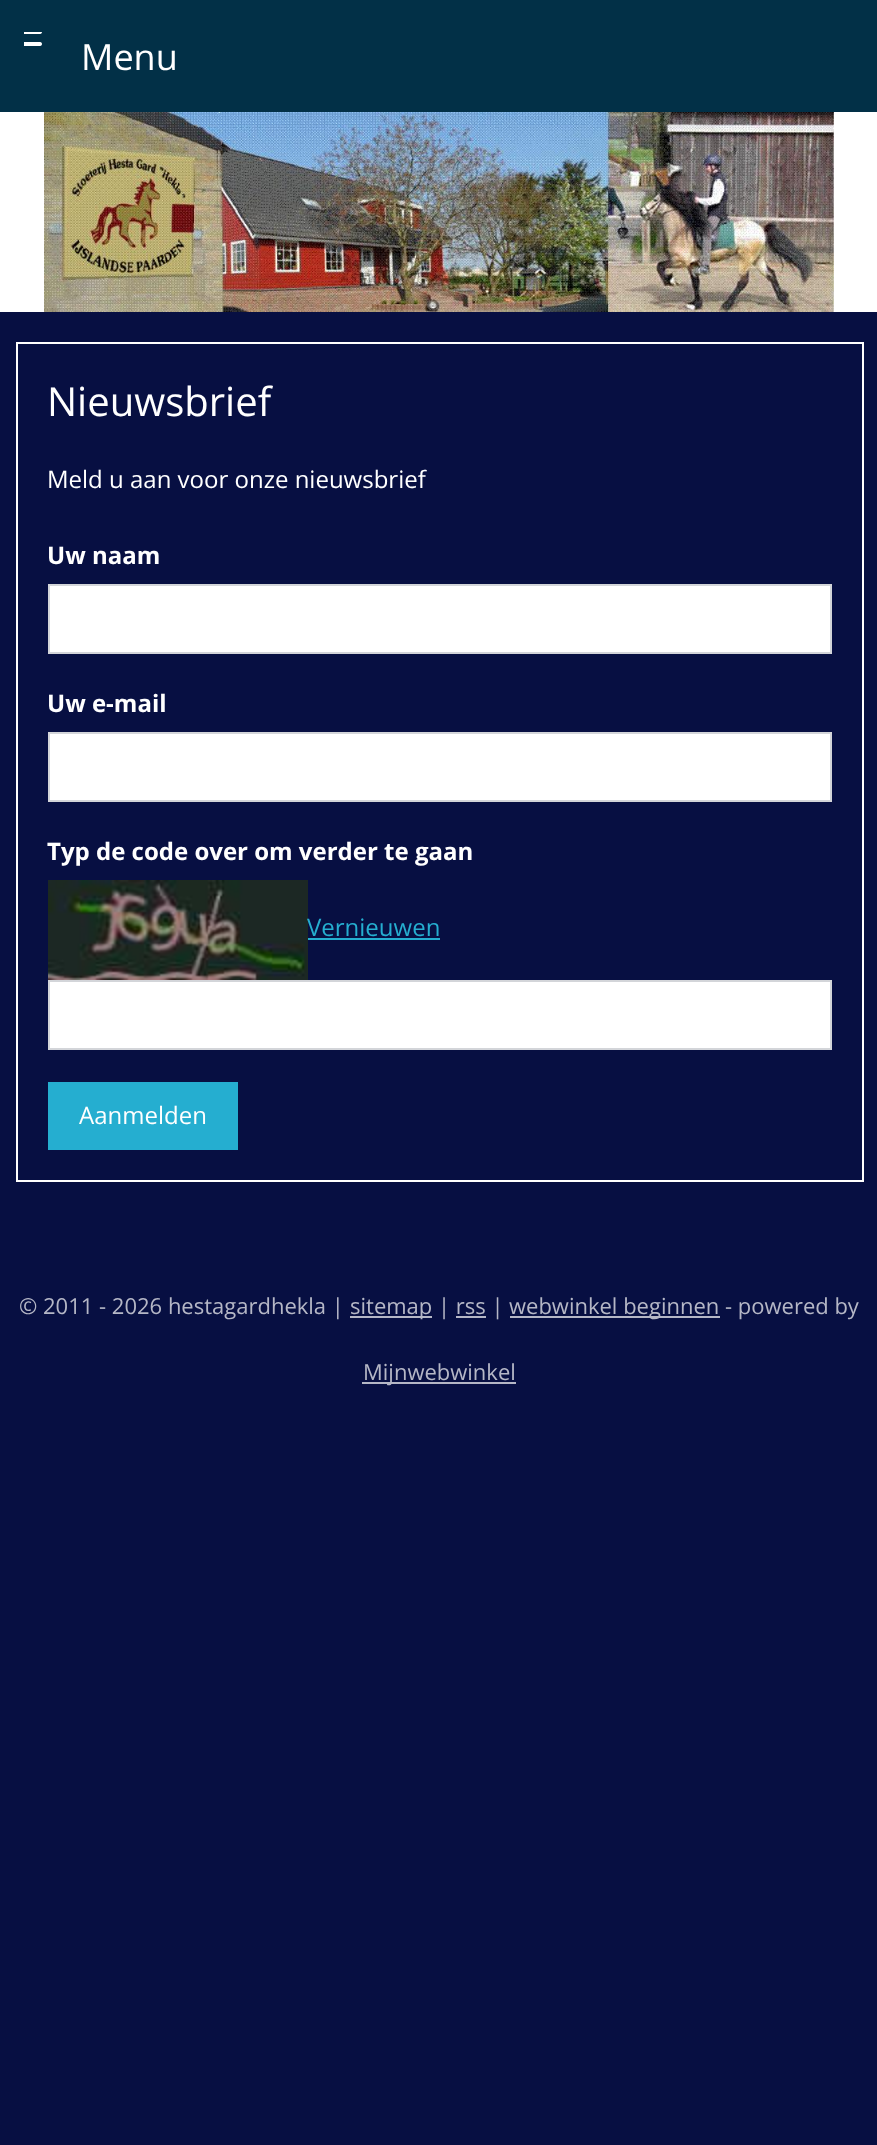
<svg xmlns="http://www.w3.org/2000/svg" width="877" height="2145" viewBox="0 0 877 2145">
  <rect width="100%" height="100%" fill="rgb(7,15,66)"/>
  <rect x="0" y="0" width="877" height="112" fill="rgb(2,48,71)"/>
  <image x="24" y="32" width="18" height="14" href="pic1.png"/>
  <text x="81" y="70" font-family="Open Sans" font-size="36" fill="rgb(255,255,255)">Menu</text>
  <rect x="0" y="112" width="877" height="200" fill="rgb(255,255,255)"/>
  <image x="44" y="112" width="790" height="200" href="pic2.png"/>
  <rect x="17" y="343" width="846" height="838" fill="none" stroke="rgb(255,255,255)" stroke-width="2"/>
  <text x="47" y="416" font-family="Open Sans" font-size="40" fill="rgb(255,255,255)">Nieuwsbrief</text>
  <text x="47" y="488" font-family="Open Sans" font-size="24" fill="rgb(255,255,255)">Meld u aan voor onze nieuwsbrief</text>
  <text x="47" y="564" font-family="Open Sans" font-size="24" font-weight="bold" fill="rgb(255,255,255)">Uw naam</text>
  <rect x="49" y="585" width="782" height="68" fill="rgb(255,255,255)" stroke="rgb(211,213,217)" stroke-width="2"/>
  <text x="47" y="712" font-family="Open Sans" font-size="24" font-weight="bold" fill="rgb(255,255,255)">Uw e-mail</text>
  <rect x="49" y="733" width="782" height="68" fill="rgb(255,255,255)" stroke="rgb(211,213,217)" stroke-width="2"/>
  <text x="47" y="860" font-family="Open Sans" font-size="24" font-weight="bold" fill="rgb(255,255,255)">Typ de code over om verder te gaan</text>
  <image x="48" y="880" width="260" height="100" href="pic3.png"/>
  <text x="307" y="936" font-family="Open Sans" font-size="24" fill="rgb(37,174,208)">Vernieuwen</text>
  <rect x="308" y="938" width="132" height="2" fill="rgb(37,174,208)"/>
  <rect x="49" y="981" width="782" height="68" fill="rgb(255,255,255)" stroke="rgb(211,213,217)" stroke-width="2"/>
  <rect x="48" y="1082" width="190" height="68" fill="rgb(37,174,208)"/>
  <text x="79" y="1124" font-family="Open Sans" font-size="24" fill="rgb(255,255,255)">Aanmelden</text>
  <text x="19" y="1314" font-family="Open Sans" font-size="22" fill="rgb(181,183,198)">© 2011 - 2026 hestagardhekla |</text>
  <rect x="350" y="1316" width="82" height="2" fill="rgb(181,183,198)"/>
  <g font-family="Open Sans" font-size="22" fill="rgb(181,183,198)">
    <text x="350" y="1314">sitemap</text>
    <text x="438" y="1314">| rss |</text>
  </g>
  <rect x="510" y="1316" width="210" height="2" fill="rgb(181,183,198)"/>
  <g font-family="Open Sans" font-size="22" fill="rgb(181,183,198)">
    <text x="509" y="1314">webwinkel beginnen</text>
    <text x="725" y="1314">- powered by</text>
  </g>
  <rect x="456" y="1316" width="30" height="2" fill="rgb(181,183,198)"/>
  <rect x="362" y="1382" width="154" height="2" fill="rgb(181,183,198)"/>
  <text x="363" y="1380" font-family="Open Sans" font-size="22" fill="rgb(181,183,198)">Mijnwebwinkel</text>
</svg>
